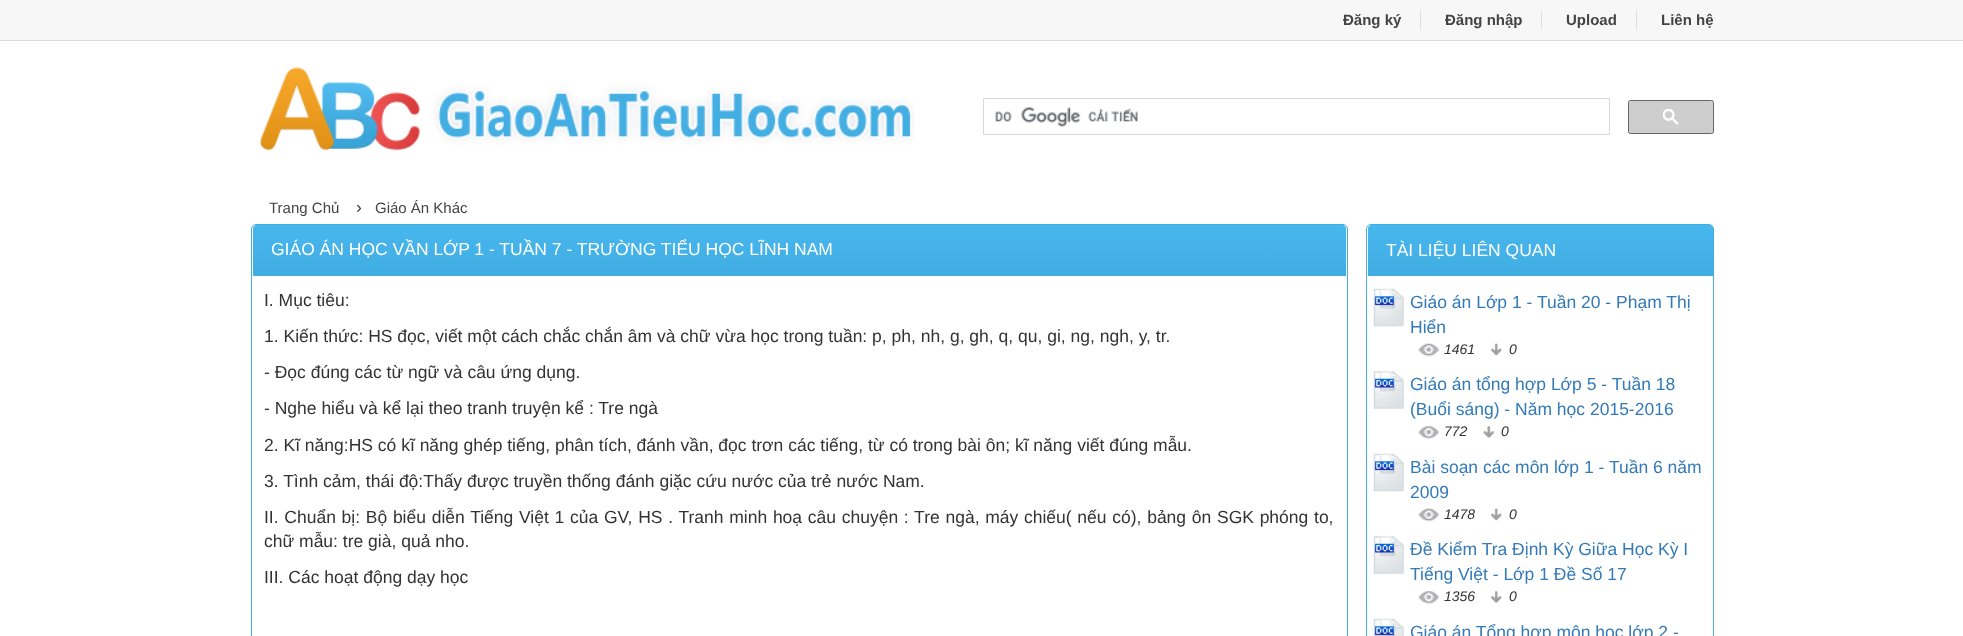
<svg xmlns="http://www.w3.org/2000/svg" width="1963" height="636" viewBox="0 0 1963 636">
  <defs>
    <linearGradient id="g1" gradientUnits="userSpaceOnUse" x1="799" y1="225" x2="799" y2="275"><stop offset="0" stop-color="rgb(71,183,238)"/><stop offset="1" stop-color="rgb(65,173,226)"/></linearGradient>
    <linearGradient id="g2" gradientUnits="userSpaceOnUse" x1="1540" y1="225" x2="1540" y2="275"><stop offset="0" stop-color="rgb(71,183,238)"/><stop offset="1" stop-color="rgb(65,173,226)"/></linearGradient>
  </defs>
  <rect width="100%" height="100%" fill="rgb(255,255,255)"/>
  <rect x="0" y="0" width="1963" height="40" fill="rgb(247,247,247)"/>
  <rect x="0" y="40" width="1963" height="1" fill="rgb(221,221,221)"/>
  <text x="1343" y="25" font-family="Liberation Sans" font-size="15" font-weight="bold" fill="rgb(68,68,68)">Đăng ký</text>
  <rect x="1420" y="11" width="1" height="18" fill="rgb(221,221,221)"/>
  <text x="1445" y="25" font-family="Liberation Sans" font-size="15" font-weight="bold" fill="rgb(68,68,68)">Đăng nhập</text>
  <rect x="1541" y="11" width="1" height="18" fill="rgb(221,221,221)"/>
  <text x="1566" y="25" font-family="Liberation Sans" font-size="15" font-weight="bold" fill="rgb(68,68,68)">Upload</text>
  <rect x="1636" y="11" width="1" height="18" fill="rgb(221,221,221)"/>
  <text x="1661" y="25" font-family="Liberation Sans" font-size="15" font-weight="bold" fill="rgb(68,68,68)">Liên hệ</text>
  <image x="259" y="67" width="655" height="84" href="pic1.png"/>
  <rect x="983.5" y="98.5" width="626" height="36" fill="none" stroke="rgb(217,217,217)"/>
  <image x="995" y="107" width="143" height="20" href="pic2.png"/>
  <rect x="1628.5" y="100.5" width="85" height="33" rx="2" fill="rgb(206,206,206)" stroke="rgb(102,102,102)"/>
  <image x="1663" y="109" width="16" height="16" href="pic3.png"/>
  <text x="269" y="213" font-family="Liberation Sans" font-size="15" fill="rgb(68,68,68)">Trang Chủ</text>
  <text x="356" y="213" font-family="Liberation Sans" font-size="17.5" fill="rgb(51,51,51)">›</text>
  <text x="375" y="213" font-family="Liberation Sans" font-size="15" fill="rgb(68,68,68)">Giáo Án Khác</text>
  <rect x="251.5" y="224.5" width="1096" height="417" rx="4.5" fill="none" stroke="rgb(65,173,226)"/>
  <path d="M257 225H1342C1344 225 1346 227 1346 229V276H253V229C253 227 255 225 257 225Z" fill="rgb(65,173,226)"/>
  <path d="M257 225H1342C1344 225 1346 227 1346 229V275H253V229C253 227 255 225 257 225Z" fill="url(#g1)"/>
  <text x="271" y="255" font-family="Liberation Sans" font-size="17.5" fill="rgb(255,255,255)">GIÁO ÁN HỌC VẦN LỚP 1 - TUẦN 7 - TRƯỜNG TIỂU HỌC LĨNH NAM</text>
  <g font-family="Liberation Sans" font-size="17.5" fill="rgb(51,51,51)">
    <text x="264" y="306">I. Mục tiêu:</text>
    <text x="264" y="342">1. Kiến thức: HS đọc, viết một cách chắc chắn âm và chữ vừa học trong tuần: p, ph, nh, g, gh, q, qu, gi, ng, ngh, y, tr.</text>
    <text x="264" y="378">- Đọc đúng các từ ngữ và câu ứng dụng.</text>
    <text x="264" y="414">- Nghe hiểu và kể lại theo tranh truyện kể : Tre ngà</text>
    <text x="264" y="451">2. Kĩ năng:HS có kĩ năng ghép tiếng, phân tích, đánh vần, đọc trơn các tiếng, từ có trong bài ôn; kĩ năng viết đúng mẫu.</text>
    <text x="264" y="487">3. Tình cảm, thái độ:Thấy được truyền thống đánh giặc cứu nước của trẻ nước Nam.</text>
    <text>
      <tspan x="264" y="523" word-spacing="0.85">II. Chuẩn bị: Bộ biểu diễn Tiếng Việt 1 của GV, HS . Tranh minh hoạ câu chuyện : Tre ngà, máy chiếu( nếu có), bảng ôn SGK phóng to,</tspan>
      <tspan x="264" y="547">chữ mẫu: tre già, quả nho.</tspan>
    </text>
    <text x="264" y="583">III. Các hoạt động dạy học</text>
  </g>
  <rect x="1366.5" y="224.5" width="347" height="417" rx="4.5" fill="none" stroke="rgb(65,173,226)"/>
  <path d="M1372 225H1709C1711 225 1713 227 1713 229V276H1368V229C1368 227 1370 225 1372 225Z" fill="rgb(65,173,226)"/>
  <path d="M1372 225H1709C1711 225 1713 227 1713 229V275H1368V229C1368 227 1370 225 1372 225Z" fill="url(#g2)"/>
  <text x="1386" y="256" font-family="Liberation Sans" font-size="17.5" fill="rgb(255,255,255)">TÀI LIỆU LIÊN QUAN</text>
  <image x="1373" y="288" width="31" height="39" href="pic4.png"/>
  <g font-family="Liberation Sans" font-size="17.5" fill="rgb(51,122,183)">
    <text>
      <tspan x="1410" y="308">Giáo án Lớp 1 - Tuần 20 - Phạm Thị</tspan>
      <tspan x="1410" y="333">Hiển</tspan>
    </text>
  </g>
  <image x="1418" y="343" width="21" height="14" href="pic5.png"/>
  <text x="1444" y="354" font-family="Liberation Sans" font-size="14" font-style="italic" fill="rgb(51,51,51)">1461</text>
  <image x="1491" y="343" width="11" height="13" href="pic6.png"/>
  <text x="1509" y="354" font-family="Liberation Sans" font-size="14" font-style="italic" fill="rgb(51,51,51)">0</text>
  <image x="1373" y="371" width="31" height="38" href="pic7.png"/>
  <g font-family="Liberation Sans" font-size="17.5" fill="rgb(51,122,183)">
    <text>
      <tspan x="1410" y="390">Giáo án tổng hợp Lớp 5 - Tuần 18</tspan>
      <tspan x="1410" y="415">(Buổi sáng) - Năm học 2015-2016</tspan>
    </text>
  </g>
  <image x="1418" y="426" width="21" height="13" href="pic8.png"/>
  <text x="1444" y="436" font-family="Liberation Sans" font-size="14" font-style="italic" fill="rgb(51,51,51)">772</text>
  <image x="1483" y="426" width="11" height="12" href="pic9.png"/>
  <text x="1501" y="436" font-family="Liberation Sans" font-size="14" font-style="italic" fill="rgb(51,51,51)">0</text>
  <image x="1373" y="453" width="31" height="39" href="pic10.png"/>
  <g font-family="Liberation Sans" font-size="17.5" fill="rgb(51,122,183)">
    <text>
      <tspan x="1410" y="473">Bài soạn các môn lớp 1 - Tuần 6 năm</tspan>
      <tspan x="1410" y="498">2009</tspan>
    </text>
  </g>
  <image x="1418" y="508" width="21" height="14" href="pic5.png"/>
  <text x="1444" y="519" font-family="Liberation Sans" font-size="14" font-style="italic" fill="rgb(51,51,51)">1478</text>
  <image x="1491" y="508" width="11" height="13" href="pic6.png"/>
  <text x="1509" y="519" font-family="Liberation Sans" font-size="14" font-style="italic" fill="rgb(51,51,51)">0</text>
  <image x="1373" y="536" width="31" height="38" href="pic7.png"/>
  <g font-family="Liberation Sans" font-size="17.5" fill="rgb(51,122,183)">
    <text>
      <tspan x="1410" y="555">Đề Kiểm Tra Định Kỳ Giữa Học Kỳ I</tspan>
      <tspan x="1410" y="580">Tiếng Việt - Lớp 1 Đề Số 17</tspan>
    </text>
  </g>
  <image x="1418" y="591" width="21" height="13" href="pic8.png"/>
  <text x="1444" y="601" font-family="Liberation Sans" font-size="14" font-style="italic" fill="rgb(51,51,51)">1356</text>
  <image x="1491" y="591" width="11" height="12" href="pic11.png"/>
  <text x="1509" y="601" font-family="Liberation Sans" font-size="14" font-style="italic" fill="rgb(51,51,51)">0</text>
  <image x="1373" y="618" width="31" height="18" href="pic12.png"/>
  <text x="1410" y="638" font-family="Liberation Sans" font-size="17.5" fill="rgb(51,122,183)">Giáo án Tổng hợp môn học lớp 2 -</text>
</svg>
